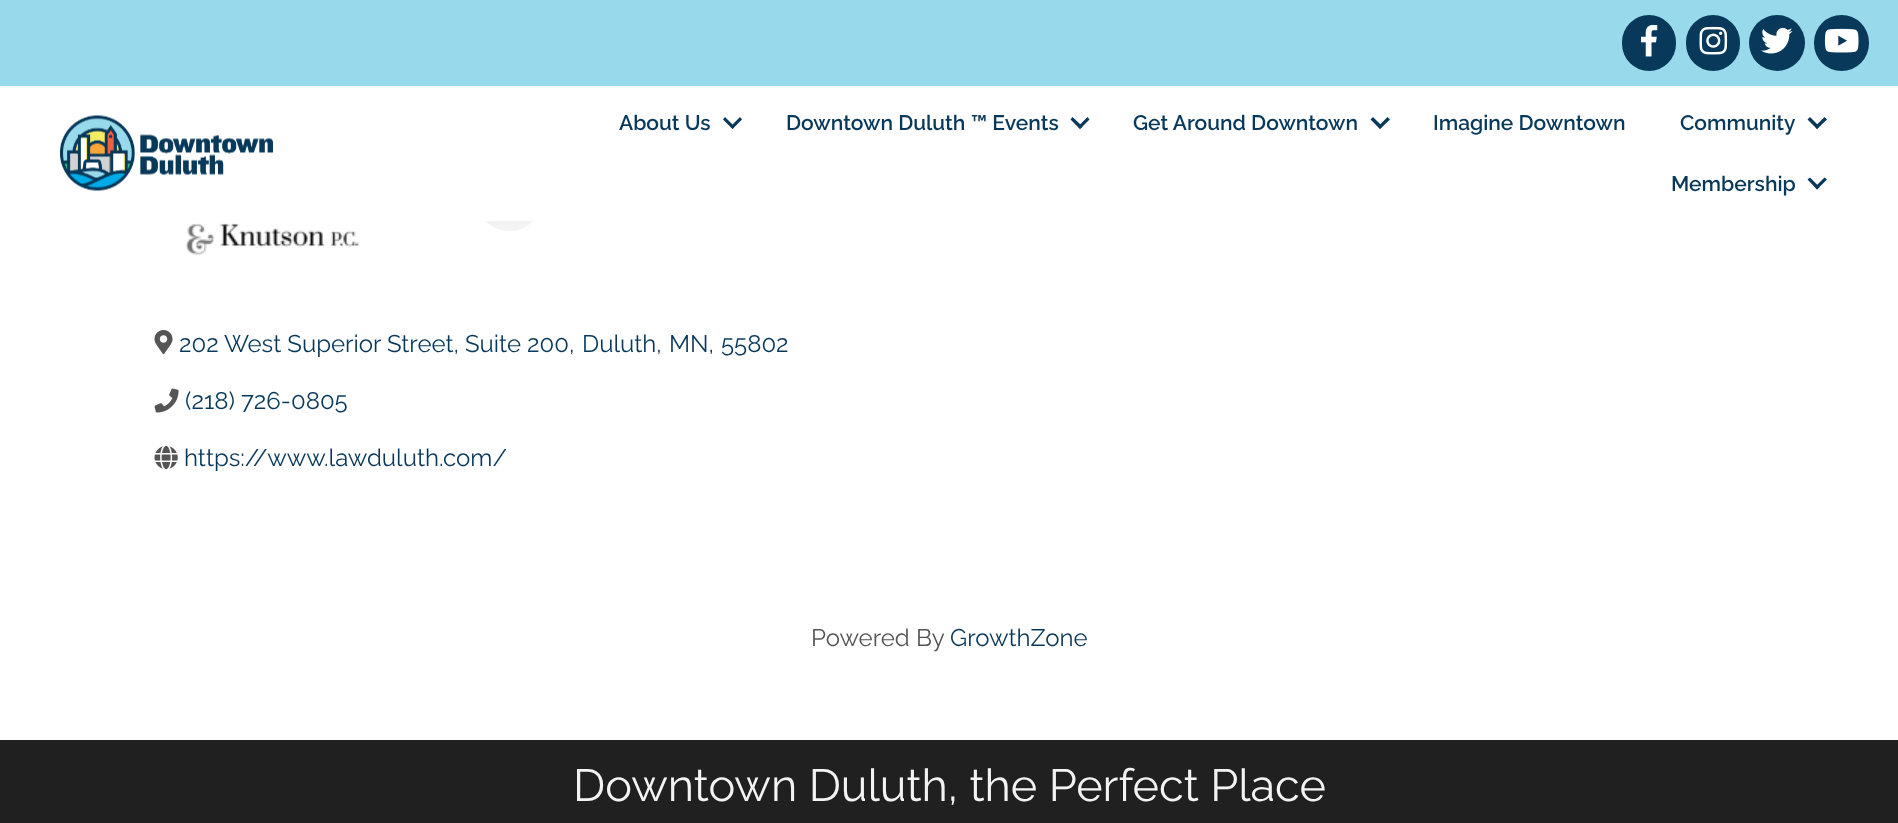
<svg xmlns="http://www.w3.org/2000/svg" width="1898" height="823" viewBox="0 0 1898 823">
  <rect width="100%" height="100%" fill="rgb(255,255,255)"/>
  <rect x="0" y="0" width="1898" height="86" fill="rgb(152,217,235)"/>
  <rect x="1622" y="15" width="54" height="56" rx="27" fill="rgb(8,57,91)"/>
  <image x="1641" y="24" width="17" height="33" href="pic1.png"/>
  <rect x="1686" y="15" width="54" height="56" rx="27" fill="rgb(8,57,91)"/>
  <image x="1699" y="26" width="29" height="29" href="pic2.png"/>
  <circle cx="1777" cy="43" r="28" fill="rgb(8,57,91)"/>
  <image x="1761" y="27" width="32" height="27" href="pic3.png"/>
  <rect x="1814" y="15" width="55" height="56" rx="27.5" fill="rgb(8,57,91)"/>
  <image x="1824" y="28" width="35" height="25" href="pic4.png"/>
  <circle cx="509.5" cy="197.5" r="33.5" fill="rgb(243,243,243)"/>
  <rect x="476" y="164" width="67" height="57" fill="rgb(255,255,255)"/>
  <image x="60" y="115" width="213" height="76" href="pic5.png"/>
  <text x="619" y="130" font-family="Raleway" font-size="21" font-weight="600" fill="rgb(8,57,91)">About Us</text>
  <path d="M740 117L742 119.5L732.5 129L730.5 126.5Z" fill="rgb(8,57,91)"/>
  <path d="M725 117L734.5 126.5L732.5 129L723 119.5Z" fill="rgb(8,57,91)"/>
  <text x="786" y="130" font-family="Raleway" font-size="21" font-weight="600" fill="rgb(8,57,91)">Downtown Duluth ™ Events</text>
  <path d="M1087.5 117L1089.5 119.5L1080 129L1078 126.5Z" fill="rgb(8,57,91)"/>
  <path d="M1072.5 117L1082.5 126.5L1080 129L1070.5 119.5Z" fill="rgb(8,57,91)"/>
  <text x="1133" y="130" font-family="Raleway" font-size="21" font-weight="600" fill="rgb(8,57,91)">Get Around Downtown</text>
  <path d="M1387.5 117L1390 119.5L1380 129L1378 126.5Z" fill="rgb(8,57,91)"/>
  <path d="M1373 117L1382.5 126.5L1380 129L1370.5 119.5Z" fill="rgb(8,57,91)"/>
  <g font-family="Raleway" font-size="21" font-weight="600" fill="rgb(8,57,91)">
    <text x="1433" y="130">Imagine Downtown</text>
    <text x="1680" y="130">Community</text>
  </g>
  <path d="M1824.5 117L1827 119.5L1817 129L1815 126.5Z" fill="rgb(8,57,91)"/>
  <path d="M1810 117L1819.5 126.5L1817 129L1807.5 119.5Z" fill="rgb(8,57,91)"/>
  <text x="1671" y="191" font-family="Raleway" font-size="21" font-weight="600" fill="rgb(8,57,91)">Membership</text>
  <path d="M1824.5 177.5L1827 179.5L1817 189.5L1815 187Z" fill="rgb(8,57,91)"/>
  <path d="M1810 177.5L1819.5 187L1817 189.5L1807.5 179.5Z" fill="rgb(8,57,91)"/>
  <image x="185" y="221" width="190" height="34" href="pic6.png"/>
  <image x="154" y="330" width="19" height="24" href="pic7.png"/>
  <g font-family="Raleway" font-size="24" fill="rgb(8,57,91)">
    <text x="179" y="352">202 West Superior Street, Suite 200,</text>
    <text x="582" y="352">Duluth,</text>
    <text x="669" y="352">MN,</text>
    <text x="721" y="352">55802</text>
  </g>
  <image x="154" y="388" width="25" height="25" href="pic8.png"/>
  <text x="185" y="409" font-family="Raleway" font-size="24" fill="rgb(8,57,91)">(218) 726-0805</text>
  <image x="154" y="445" width="24" height="25" href="pic9.png"/>
  <text x="184" y="466" font-family="Raleway" font-size="24" fill="rgb(8,57,91)">https://www.lawduluth.com/</text>
  <text x="811" y="646" font-family="Raleway" font-size="24" fill="rgb(85,85,85)">Powered By</text>
  <text x="950" y="646" font-family="Raleway" font-size="24" fill="rgb(8,57,91)">GrowthZone</text>
  <rect x="0" y="740" width="1898" height="83" fill="rgb(32,32,32)"/>
  <text x="573" y="801" font-family="Raleway" font-size="45" fill="rgb(243,243,243)">Downtown Duluth, the Perfect Place</text>
</svg>
